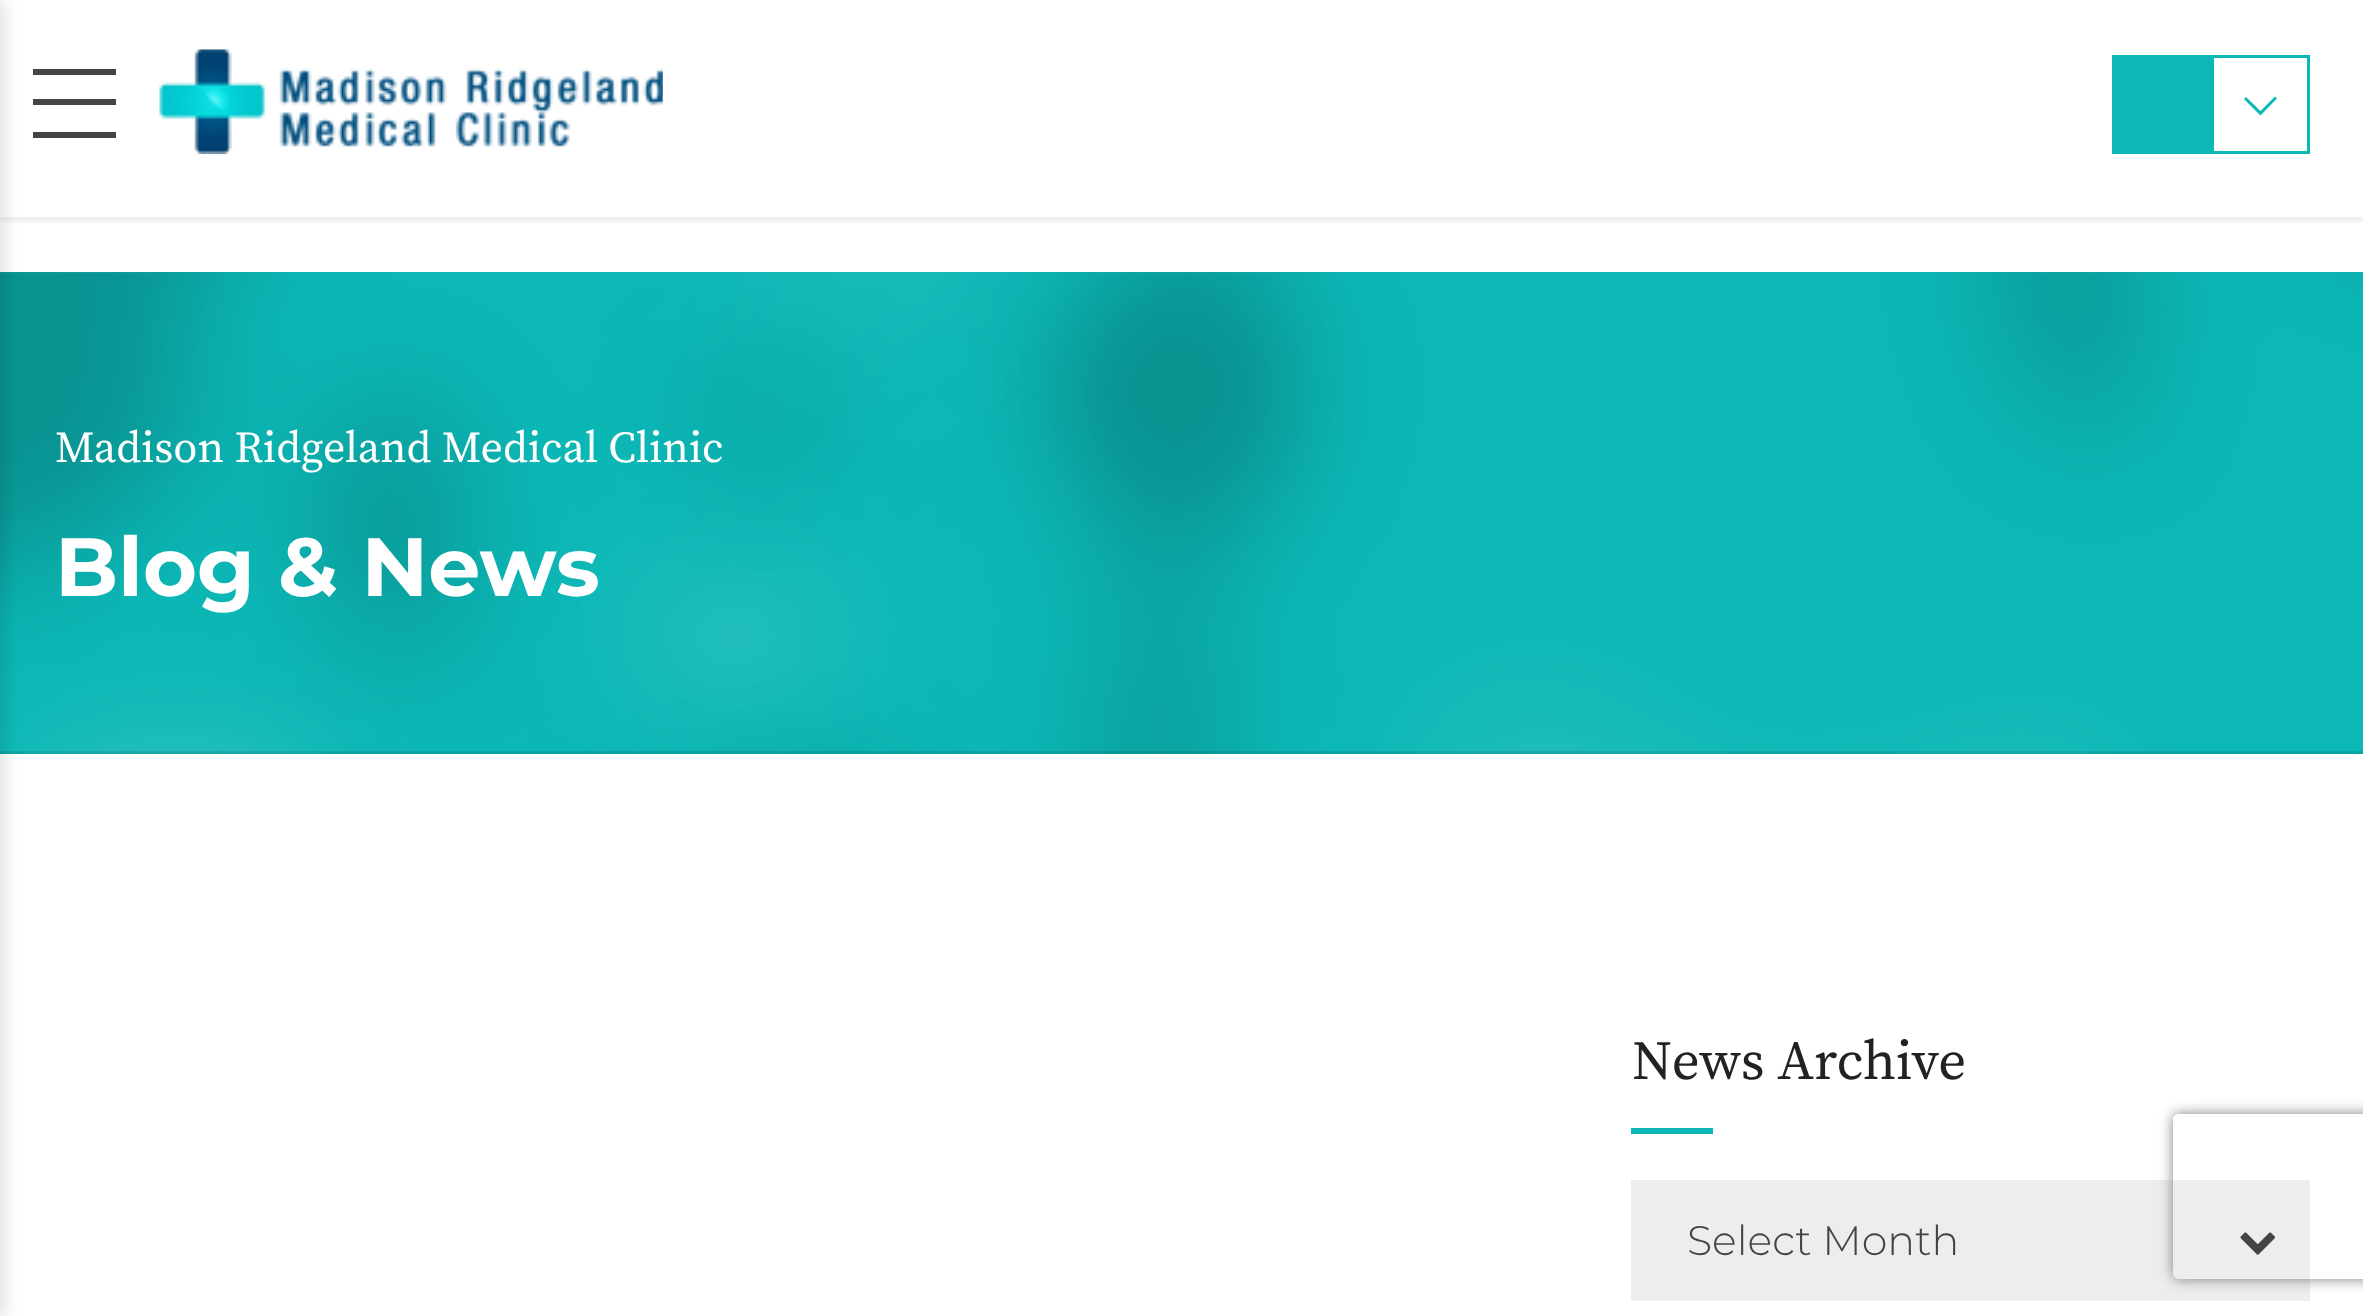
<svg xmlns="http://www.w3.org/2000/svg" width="2363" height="1316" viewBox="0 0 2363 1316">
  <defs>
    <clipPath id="clip1"><rect x="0" y="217" width="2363" height="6"/></clipPath>
    <clipPath id="clip2"><path d="M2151 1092H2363V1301H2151ZM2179 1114H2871C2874.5 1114 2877 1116.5 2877 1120V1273C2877 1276.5 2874.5 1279 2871 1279H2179C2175.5 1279 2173 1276.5 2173 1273V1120C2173 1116.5 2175.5 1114 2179 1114Z" clip-rule="evenodd"/></clipPath>
  </defs>
  <rect width="100%" height="100%" fill="rgb(255,255,255)"/>
  <rect x="0" y="272" width="2363" height="482" fill="rgb(12,184,182)"/>
  <image x="0" y="272" width="2363" height="482" href="pic2.png"/>
  <rect x="0" y="751" width="2363" height="3" fill="rgba(0,0,0,0.1)"/>
  <rect x="-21" y="0" width="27" height="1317" fill="rgba(0,0,0,0.1)" filter="blur(7px)"/>
  <g clip-path="url(#clip1)">
    <rect x="0" y="3" width="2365" height="217" fill="rgba(0,0,0,0.1)" filter="blur(4px)"/>
  </g>
  <rect x="33" y="69" width="83" height="6" fill="rgb(68,68,68)"/>
  <rect x="33" y="99" width="83" height="6" fill="rgb(68,68,68)"/>
  <rect x="33" y="132" width="83" height="6" fill="rgb(68,68,68)"/>
  <image x="159" y="49" width="504" height="105" href="pic1.png"/>
  <rect x="2112" y="55" width="99" height="99" fill="rgb(12,184,182)"/>
  <rect x="2212.5" y="56.5" width="96" height="96" fill="none" stroke="rgb(12,184,182)" stroke-width="3"/>
  <path d="M2258.5 113.5L2260.5 115.5L2277 98.5L2275 96.5L2260.5 111L2246 97L2244 99Z" fill="rgb(12,184,182)"/>
  <text x="55" y="462" font-family="Source Serif Pro" font-size="44" fill="rgb(255,255,255)">Madison Ridgeland Medical Clinic</text>
  <text x="55" y="596" font-family="Montserrat" font-size="82.5" font-weight="bold" fill="rgb(255,255,255)">Blog &amp; News</text>
  <text x="1632" y="1079" font-family="Source Serif Pro" font-size="55" fill="rgb(34,34,34)">News Archive</text>
  <rect x="1631" y="1128" width="82" height="6" fill="rgb(12,184,182)"/>
  <rect x="1631" y="1180" width="679" height="121" fill="rgb(237,237,237)"/>
  <text x="1687" y="1255" font-family="Montserrat" font-size="41.25" font-weight="300" fill="rgb(68,68,68)">Select Month</text>
  <image x="2240" y="1232" width="35" height="23" href="pic3.png"/>
  <g clip-path="url(#clip2)">
    <rect x="2173" y="1114" width="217" height="165" rx="6" fill="rgb(128,128,128)" filter="blur(7px)"/>
  </g>
</svg>
